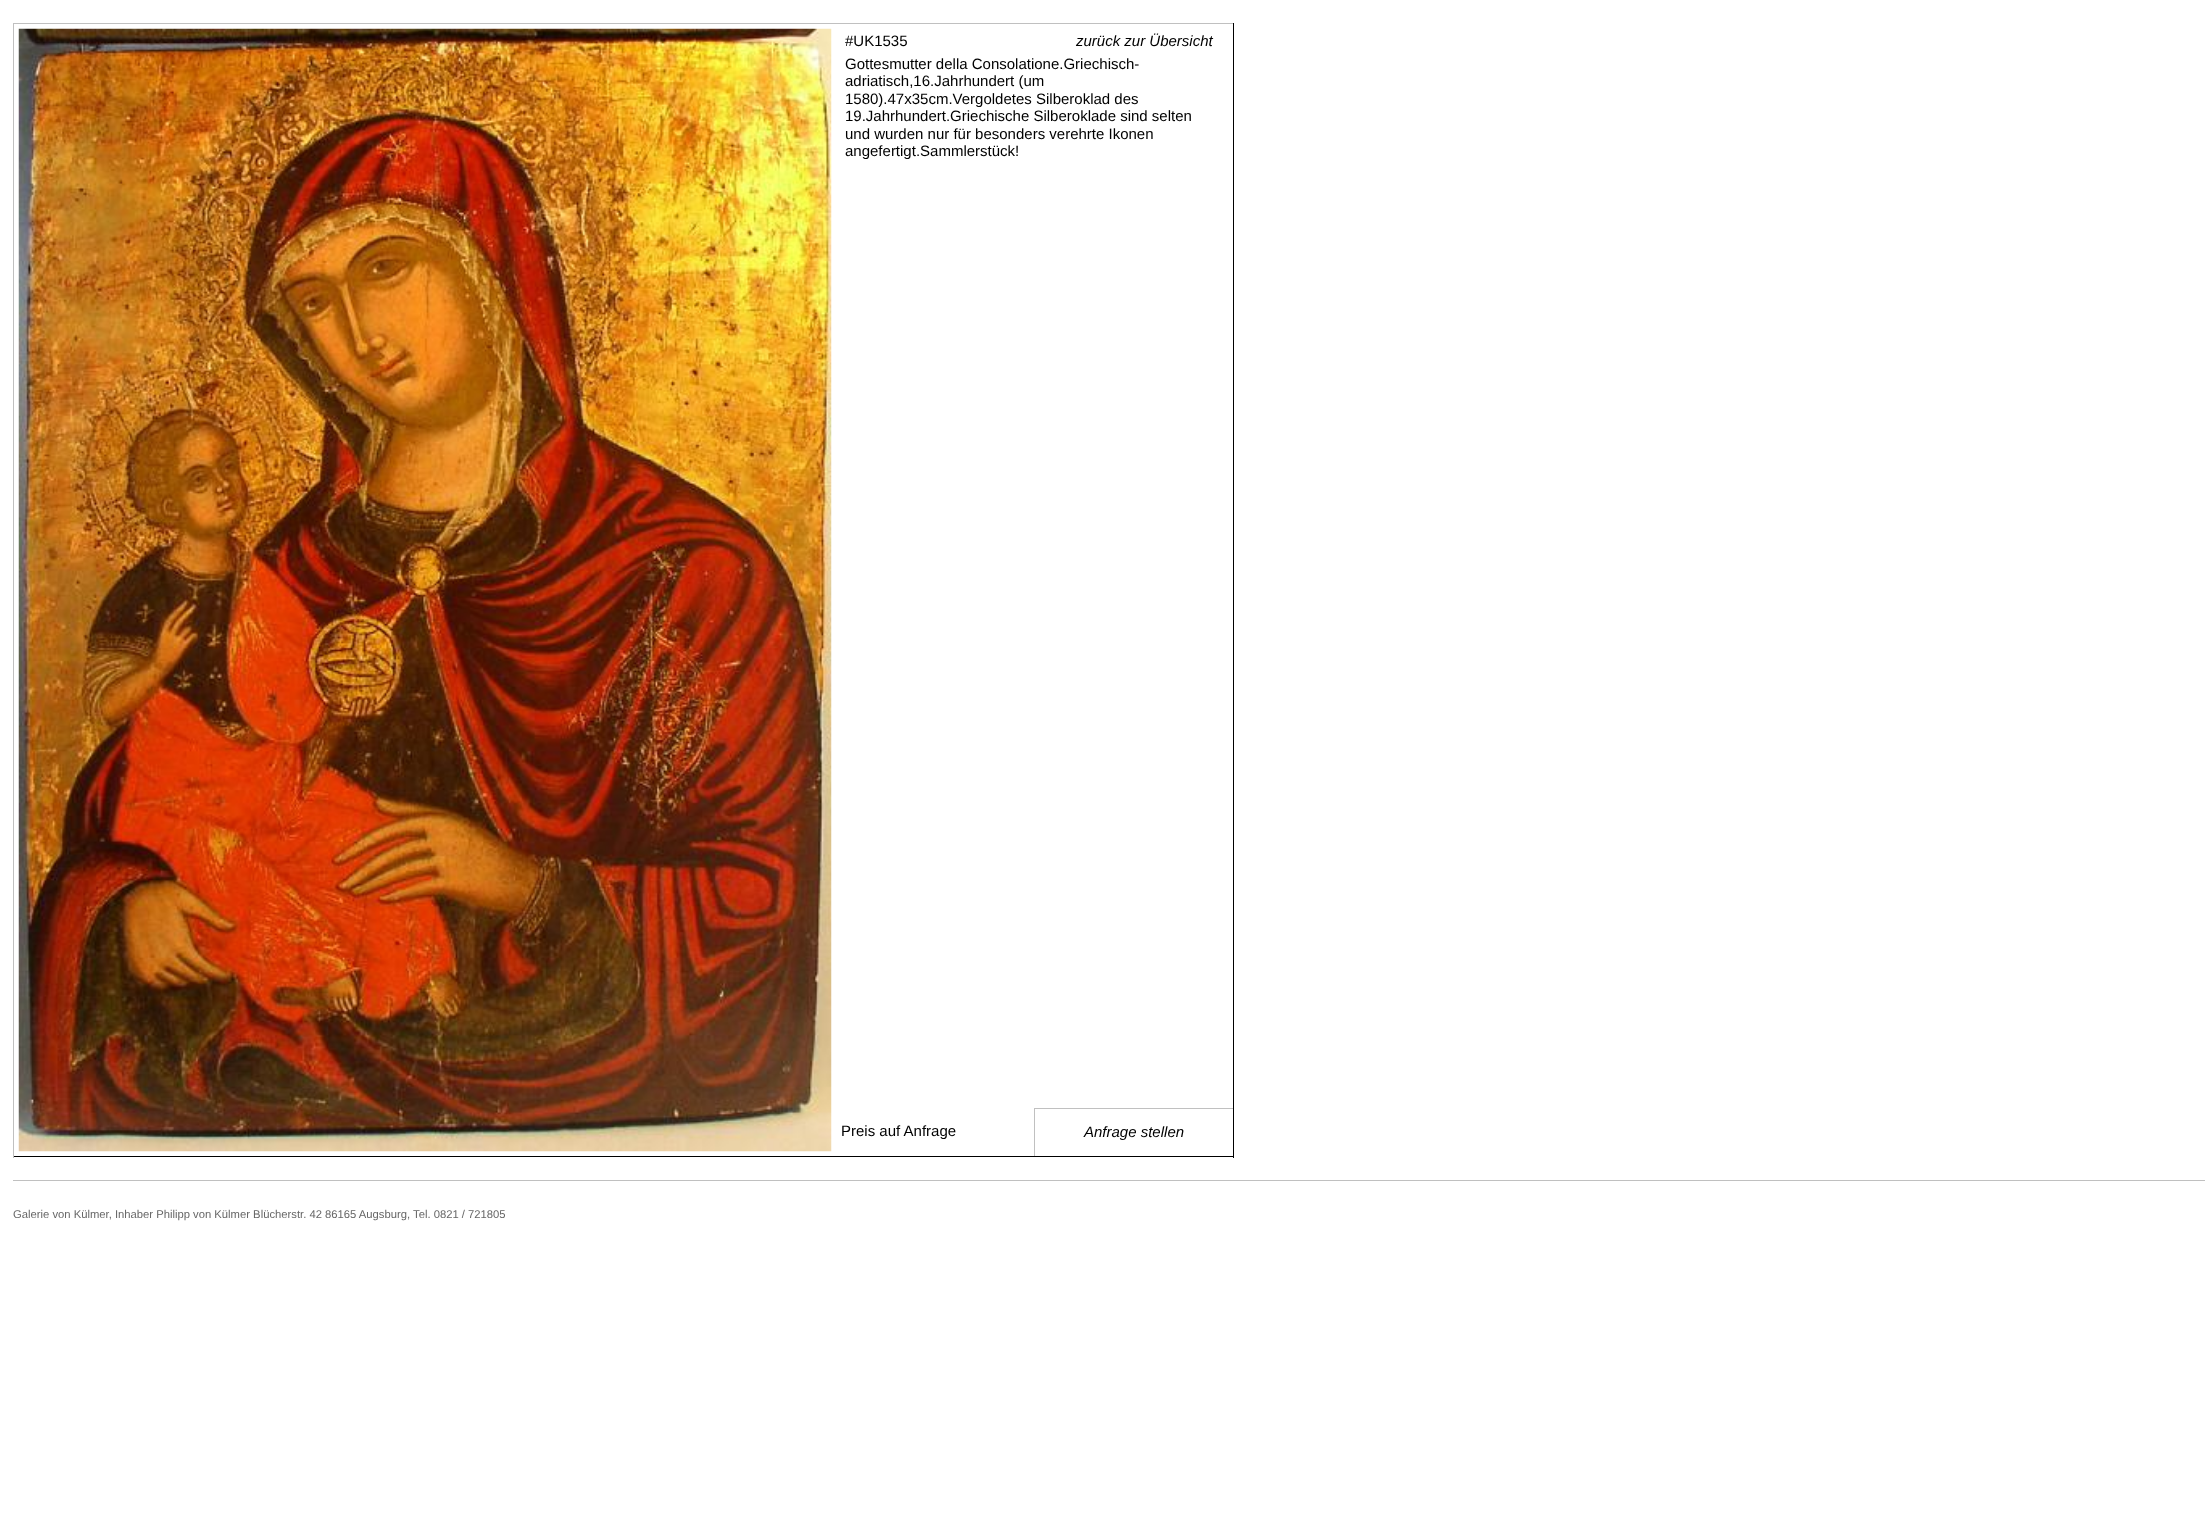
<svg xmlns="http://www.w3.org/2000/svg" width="2205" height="1517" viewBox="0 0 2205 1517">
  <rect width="100%" height="100%" fill="rgb(255,255,255)"/>
  <rect x="13" y="23" width="1221" height="1" fill="rgb(192,192,192)"/>
  <rect x="1233" y="23" width="1" height="1135" fill="rgb(0,0,0)"/>
  <rect x="13" y="1156" width="1221" height="1" fill="rgb(0,0,0)"/>
  <rect x="13" y="23" width="1" height="1135" fill="rgb(192,192,192)"/>
  <image x="18" y="28" width="814" height="1124" href="pic1.png"/>
  <text x="845" y="46" font-family="Liberation Sans" font-size="15" fill="rgb(0,0,0)">#UK1535</text>
  <text x="1076" y="46" font-family="Liberation Sans" font-size="15" font-style="italic" fill="rgb(0,0,0)">zurück zur Übersicht</text>
  <g font-family="Liberation Sans" font-size="15" fill="rgb(0,0,0)">
    <text>
      <tspan x="845" y="69">Gottesmutter della Consolatione.Griechisch-</tspan>
      <tspan x="845" y="86">adriatisch,16.Jahrhundert (um</tspan>
      <tspan x="845" y="104">1580).47x35cm.Vergoldetes Silberoklad des</tspan>
      <tspan x="845" y="121">19.Jahrhundert.Griechische Silberoklade sind selten</tspan>
      <tspan x="845" y="139">und wurden nur für besonders verehrte Ikonen</tspan>
      <tspan x="845" y="156">angefertigt.Sammlerstück!</tspan>
    </text>
    <text x="841" y="1136">Preis auf Anfrage</text>
  </g>
  <rect x="1034" y="1108" width="199" height="1" fill="rgb(192,192,192)"/>
  <rect x="1034" y="1108" width="1" height="48" fill="rgb(192,192,192)"/>
  <text x="1084" y="1137" font-family="Liberation Sans" font-size="15" font-style="italic" fill="rgb(0,0,0)">Anfrage stellen</text>
  <rect x="13" y="1180" width="2192" height="1" fill="rgb(192,192,192)"/>
  <text x="13" y="1218" font-family="Liberation Sans" font-size="11.25" fill="rgb(102,102,102)">Galerie von Külmer, Inhaber Philipp von Külmer Blücherstr. 42 86165 Augsburg, Tel. 0821 / 721805</text>
</svg>
